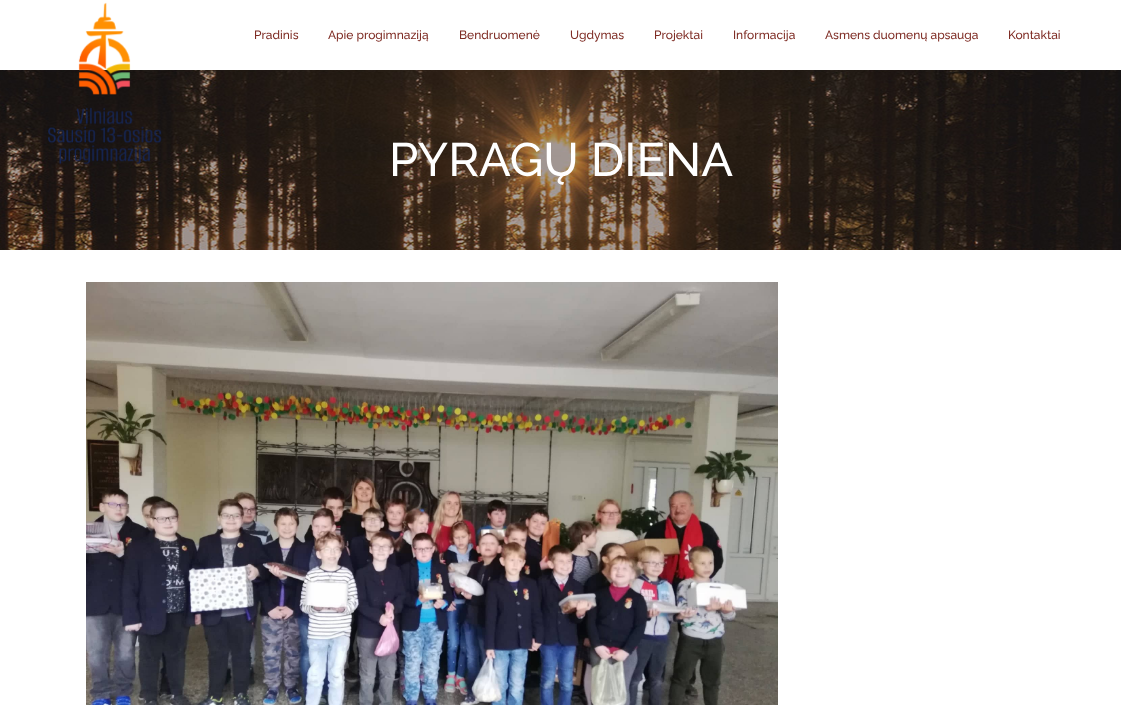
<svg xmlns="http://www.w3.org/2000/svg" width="1121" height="705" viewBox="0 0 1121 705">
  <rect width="100%" height="100%" fill="rgb(255,255,255)"/>
  <image x="0" y="70" width="1121" height="180" href="pic2.png"/>
  <image x="48" y="2" width="114" height="163" href="pic1.png"/>
  <g font-family="Raleway" font-size="12" font-weight="500" fill="rgb(126,43,35)">
    <text x="254" y="39">Pradinis</text>
    <text x="328" y="39">Apie progimnaziją</text>
    <text x="459" y="39">Bendruomenė</text>
    <text x="570" y="39">Ugdymas</text>
    <text x="654" y="39">Projektai</text>
    <text x="733" y="39">Informacija</text>
    <text x="825" y="39">Asmens duomenų apsauga</text>
    <text x="1008" y="39">Kontaktai</text>
  </g>
  <text x="389" y="176" font-family="Raleway" font-size="47" font-weight="500" fill="rgb(255,255,255)">PYRAGŲ DIENA</text>
  <image x="86" y="282" width="692" height="423" href="pic3.png"/>
</svg>
